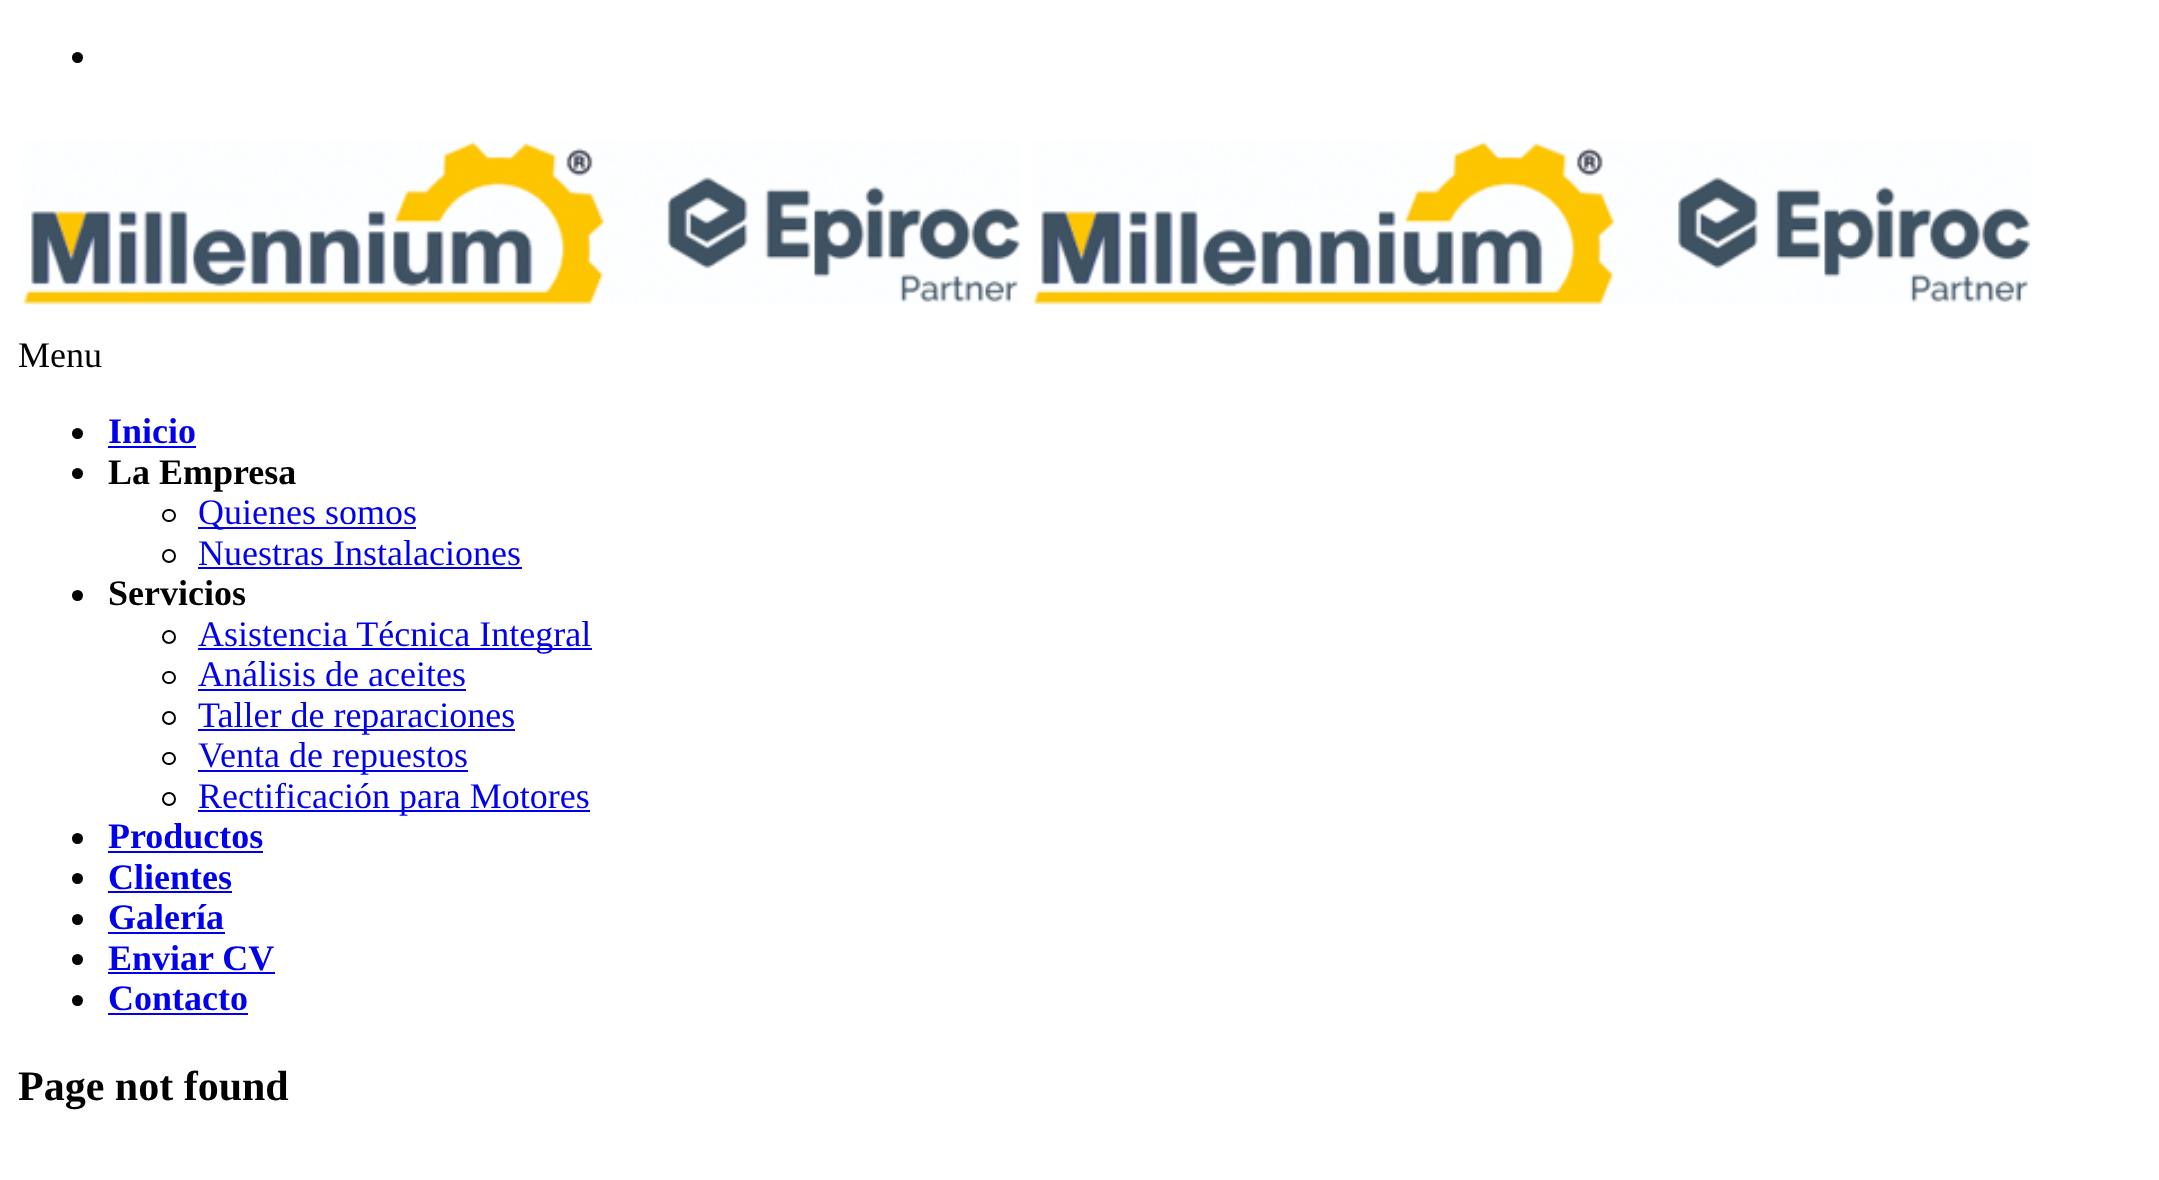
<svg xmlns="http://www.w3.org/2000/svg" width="2159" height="1180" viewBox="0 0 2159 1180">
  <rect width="100%" height="100%" fill="rgb(255,255,255)"/>
  <circle cx="77.5" cy="57.5" r="5.5" fill="rgb(0,0,0)"/>
  <image x="22" y="141" width="998" height="164" href="pic1.png"/>
  <image x="1032" y="141" width="999" height="164" href="pic2.png"/>
  <text x="18" y="367" font-family="Liberation Serif" font-size="36" fill="rgb(0,0,0)">Menu</text>
  <circle cx="77.5" cy="433.5" r="5.5" fill="rgb(0,0,0)"/>
  <text x="108" y="443" font-family="Liberation Serif" font-size="36" font-weight="bold" fill="rgb(0,0,238)">Inicio</text>
  <rect x="108" y="446" width="88" height="2" fill="rgb(0,0,238)"/>
  <circle cx="77.5" cy="473.5" r="5.5" fill="rgb(0,0,0)"/>
  <text x="108" y="484" font-family="Liberation Serif" font-size="36" font-weight="bold" fill="rgb(0,0,0)">La Empresa</text>
  <rect x="163" y="510" width="12" height="11" rx="5.5" fill="none" stroke="rgb(0,0,0)" stroke-width="2"/>
  <rect x="198" y="527" width="218" height="2" fill="rgb(0,0,238)"/>
  <text x="198" y="524" font-family="Liberation Serif" font-size="36" fill="rgb(0,0,238)">Quienes somos</text>
  <circle cx="169" cy="556" r="6" fill="none" stroke="rgb(0,0,0)" stroke-width="2"/>
  <text x="198" y="565" font-family="Liberation Serif" font-size="36" fill="rgb(0,0,238)">Nuestras Instalaciones</text>
  <rect x="198" y="567" width="324" height="2" fill="rgb(0,0,238)"/>
  <circle cx="77.5" cy="595.5" r="5.5" fill="rgb(0,0,0)"/>
  <text x="108" y="605" font-family="Liberation Serif" font-size="36" font-weight="bold" fill="rgb(0,0,0)">Servicios</text>
  <circle cx="169" cy="637" r="6" fill="none" stroke="rgb(0,0,0)" stroke-width="2"/>
  <rect x="198" y="648" width="394" height="2" fill="rgb(0,0,238)"/>
  <text x="198" y="646" font-family="Liberation Serif" font-size="36" fill="rgb(0,0,238)">Asistencia Técnica Integral</text>
  <rect x="163" y="672" width="12" height="11" rx="5.5" fill="none" stroke="rgb(0,0,0)" stroke-width="2"/>
  <text x="198" y="686" font-family="Liberation Serif" font-size="36" fill="rgb(0,0,238)">Análisis de aceites</text>
  <rect x="198" y="689" width="268" height="2" fill="rgb(0,0,238)"/>
  <circle cx="169" cy="718" r="6" fill="none" stroke="rgb(0,0,0)" stroke-width="2"/>
  <rect x="198" y="729" width="317" height="2" fill="rgb(0,0,238)"/>
  <text x="198" y="727" font-family="Liberation Serif" font-size="36" fill="rgb(0,0,238)">Taller de reparaciones</text>
  <rect x="163" y="753" width="12" height="11" rx="5.5" fill="none" stroke="rgb(0,0,0)" stroke-width="2"/>
  <rect x="198" y="770" width="270" height="2" fill="rgb(0,0,238)"/>
  <text x="198" y="767" font-family="Liberation Serif" font-size="36" fill="rgb(0,0,238)">Venta de repuestos</text>
  <circle cx="169" cy="799" r="6" fill="none" stroke="rgb(0,0,0)" stroke-width="2"/>
  <rect x="198" y="810" width="392" height="2" fill="rgb(0,0,238)"/>
  <text x="198" y="808" font-family="Liberation Serif" font-size="36" fill="rgb(0,0,238)">Rectificación para Motores</text>
  <circle cx="77.5" cy="838.5" r="5.5" fill="rgb(0,0,0)"/>
  <text x="108" y="848" font-family="Liberation Serif" font-size="36" font-weight="bold" fill="rgb(0,0,238)">Productos</text>
  <rect x="108" y="851" width="155" height="2" fill="rgb(0,0,238)"/>
  <circle cx="77.5" cy="878.5" r="5.5" fill="rgb(0,0,0)"/>
  <text x="108" y="889" font-family="Liberation Serif" font-size="36" font-weight="bold" fill="rgb(0,0,238)">Clientes</text>
  <rect x="108" y="891" width="124" height="2" fill="rgb(0,0,238)"/>
  <circle cx="77.5" cy="919.5" r="5.5" fill="rgb(0,0,0)"/>
  <text x="108" y="929" font-family="Liberation Serif" font-size="36" font-weight="bold" fill="rgb(0,0,238)">Galería</text>
  <rect x="108" y="932" width="117" height="2" fill="rgb(0,0,238)"/>
  <circle cx="77.5" cy="959.5" r="5.5" fill="rgb(0,0,0)"/>
  <text x="108" y="970" font-family="Liberation Serif" font-size="36" font-weight="bold" fill="rgb(0,0,238)">Enviar CV</text>
  <rect x="108" y="972" width="167" height="2" fill="rgb(0,0,238)"/>
  <circle cx="77.5" cy="1000.5" r="5.5" fill="rgb(0,0,0)"/>
  <text x="108" y="1010" font-family="Liberation Serif" font-size="36" font-weight="bold" fill="rgb(0,0,238)">Contacto</text>
  <rect x="108" y="1013" width="140" height="2" fill="rgb(0,0,238)"/>
  <text x="18" y="1100" font-family="Liberation Serif" font-size="42" font-weight="bold" fill="rgb(0,0,0)">Page not found</text>
</svg>
